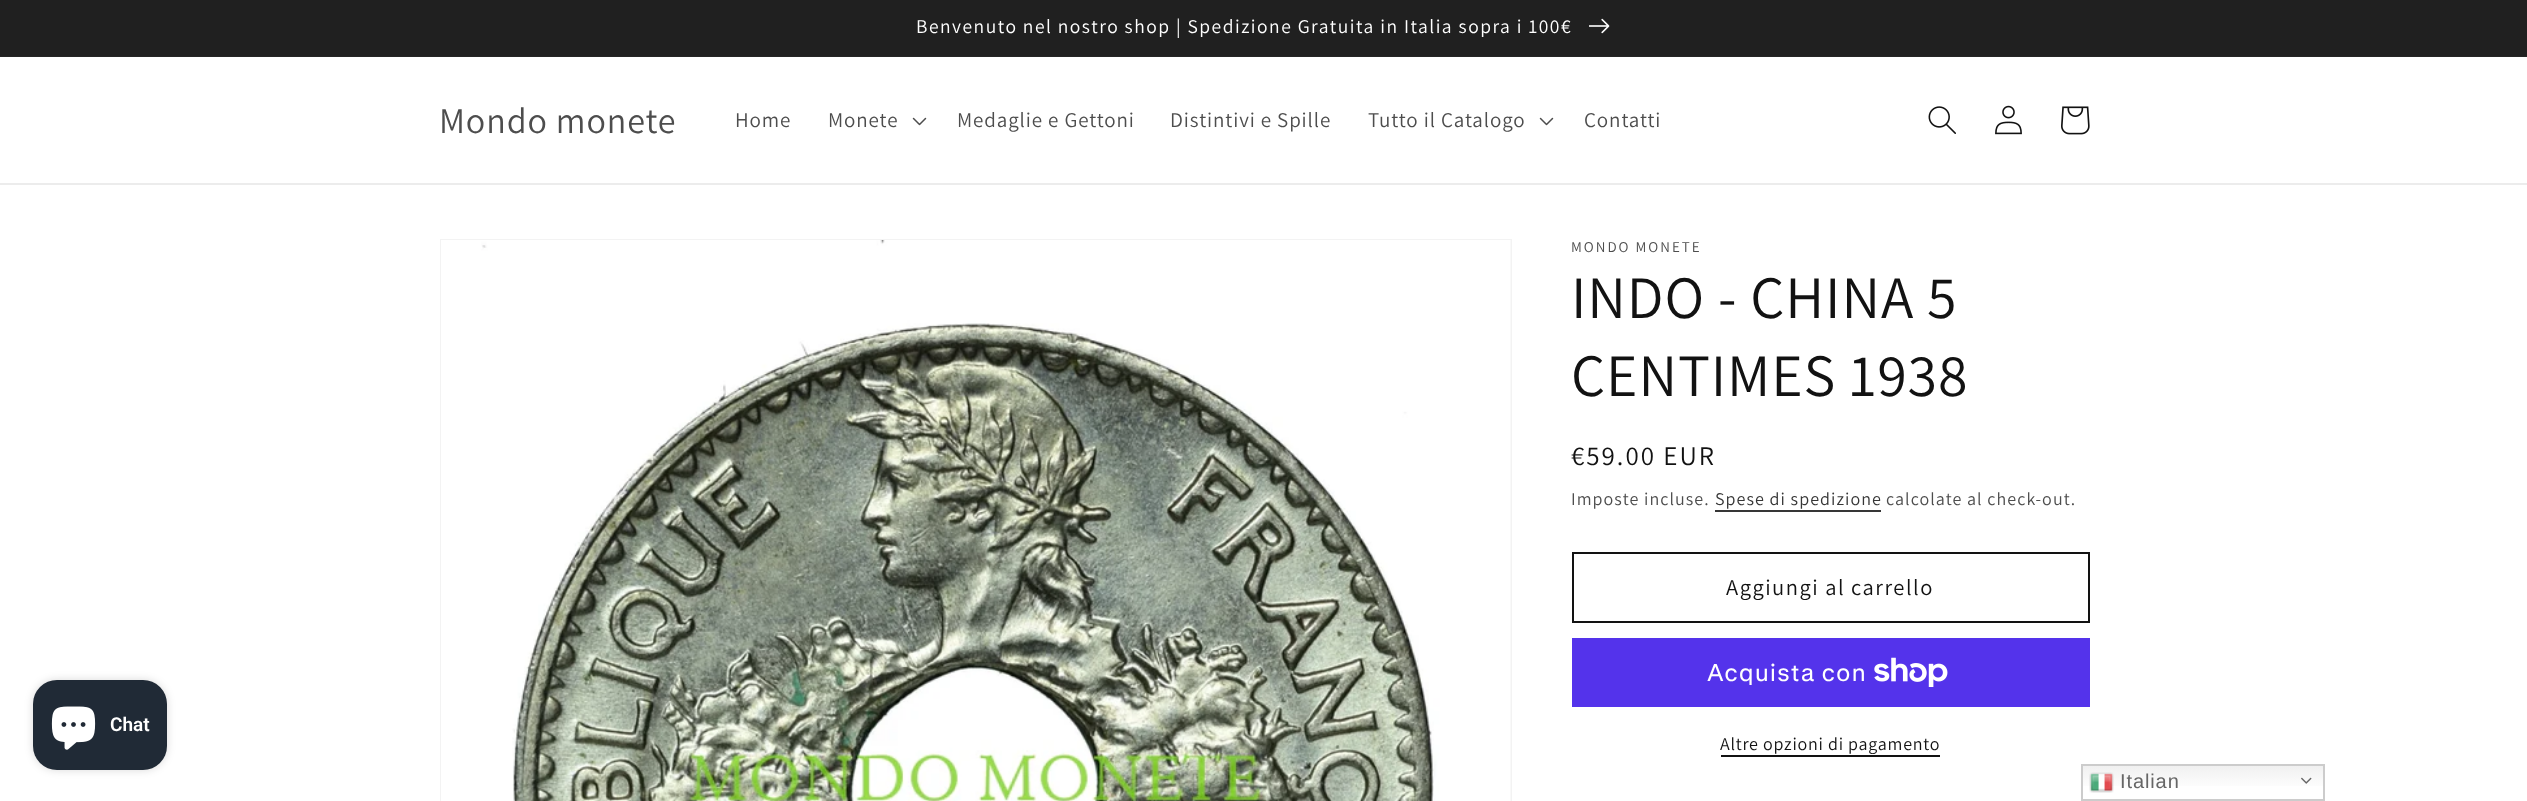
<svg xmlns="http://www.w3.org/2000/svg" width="2527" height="801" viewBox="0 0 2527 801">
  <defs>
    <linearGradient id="g1" gradientUnits="userSpaceOnUse" x1="2203" y1="764" x2="2203" y2="801"><stop offset="0" stop-color="rgb(239,239,239)"/><stop offset="0.7" stop-color="rgb(255,255,255)"/></linearGradient>
  </defs>
  <rect width="100%" height="100%" fill="rgb(255,255,255)"/>
  <rect x="0" y="56" width="2527" height="1" fill="rgb(37,37,37)"/>
  <rect x="0" y="0" width="2527" height="56" fill="rgb(32,32,32)"/>
  <text x="916" y="33" font-family="Assistant" font-size="19.5" letter-spacing="1.5" fill="rgb(255,255,255)">Benvenuto nel nostro shop | Spedizione Gratuita in Italia sopra i 100€</text>
  <image x="1589" y="18" width="21" height="16" href="pic1.png"/>
  <rect x="0" y="183" width="2527" height="2" fill="rgb(236,236,236)"/>
  <text x="439" y="133" font-family="Assistant" font-size="36" letter-spacing="0.9" fill="rgb(77,77,77)">Mondo monete</text>
  <g font-family="Assistant" font-size="21" letter-spacing="0.9" fill="rgb(77,77,77)">
    <text x="735" y="127">Home</text>
    <text x="828" y="127">Monete</text>
  </g>
  <image x="912" y="117" width="15" height="9" href="pic2.png"/>
  <g font-family="Assistant" font-size="21" letter-spacing="0.9" fill="rgb(77,77,77)">
    <text x="957" y="127">Medaglie e Gettoni</text>
    <text x="1170" y="127">Distintivi e Spille</text>
    <text x="1368" y="127">Tutto il Catalogo</text>
  </g>
  <image x="1539" y="117" width="15" height="9" href="pic2.png"/>
  <text x="1584" y="127" font-family="Assistant" font-size="21" letter-spacing="0.9" fill="rgb(77,77,77)">Contatti</text>
  <image x="1928" y="106" width="28" height="28" href="pic3.png"/>
  <image x="1995" y="105" width="27" height="30" href="pic4.png"/>
  <image x="2061" y="106" width="29" height="29" href="pic5.png"/>
  <rect x="33" y="680" width="134" height="90" rx="24" fill="rgba(0,0,0,0.15)" filter="blur(4px)"/>
  <rect x="33" y="680" width="134" height="90" rx="24" fill="rgb(32,42,54)"/>
  <image x="51" y="706" width="45" height="44" href="pic6.png"/>
  <text x="110" y="731" font-family="Roboto" font-size="19" font-weight="600" fill="rgb(255,255,255)">Chat</text>
  <rect x="441" y="240" width="1070" height="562" fill="none" stroke="rgb(243,243,243)" stroke-width="2"/>
  <image x="441" y="240" width="1070" height="561" href="pic7.png"/>
  <text x="1571" y="252" font-family="Assistant" font-size="15" letter-spacing="2" fill="rgb(77,77,77)">MONDO MONETE</text>
  <g font-family="Assistant" font-size="60" letter-spacing="0.9" fill="rgb(18,18,18)">
    <text>
      <tspan x="1571" y="318">INDO - CHINA 5</tspan>
      <tspan x="1571" y="396">CENTIMES 1938</tspan>
    </text>
  </g>
  <text x="1571" y="465" font-family="Assistant" font-size="27" letter-spacing="2" fill="rgb(18,18,18)">€59.00 EUR</text>
  <text x="1571" y="505" font-family="Assistant" font-size="18" letter-spacing="1.05" fill="rgb(77,77,77)">Imposte incluse.</text>
  <text x="1715" y="505" font-family="Assistant" font-size="18" letter-spacing="1.05" fill="rgb(54,54,54)">Spese di spedizione</text>
  <rect x="1715" y="510" width="166" height="2" fill="rgb(54,54,54)"/>
  <text x="1886" y="505" font-family="Assistant" font-size="18" letter-spacing="1.05" fill="rgb(77,77,77)">calcolate al check-out.</text>
  <rect x="1573" y="553" width="516" height="69" fill="none" stroke="rgb(18,18,18)" stroke-width="2"/>
  <text x="1726" y="595" font-family="Assistant" font-size="22.5" letter-spacing="1.5" fill="rgb(18,18,18)">Aggiungi al carrello</text>
  <rect x="1572" y="638" width="518" height="69" fill="rgb(84,51,235)"/>
  <text x="1707" y="681" font-family="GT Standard" font-size="24" letter-spacing="0.9" fill="rgb(255,255,255)">Acquista con</text>
  <image x="1874" y="657" width="74" height="30" href="pic8.png"/>
  <text x="1720" y="750" font-family="Assistant" font-size="18" letter-spacing="0.75" fill="rgb(18,18,18)">Altre opzioni di pagamento</text>
  <rect x="1721" y="755" width="219" height="2" fill="rgb(18,18,18)"/>
  <rect x="2083" y="766" width="240" height="20" fill="url(#g1)"/>
  <rect x="2082" y="765" width="242" height="35" fill="none" stroke="rgb(204,204,204)" stroke-width="2"/>
  <image x="2089" y="772" width="25" height="21" href="pic9.png"/>
  <text x="2120" y="788" font-family="Liberation Sans" font-size="20" letter-spacing="0.9" fill="rgb(102,102,102)">Italian</text>
  <image x="2301" y="777" width="11" height="7" href="pic10.png"/>
</svg>
